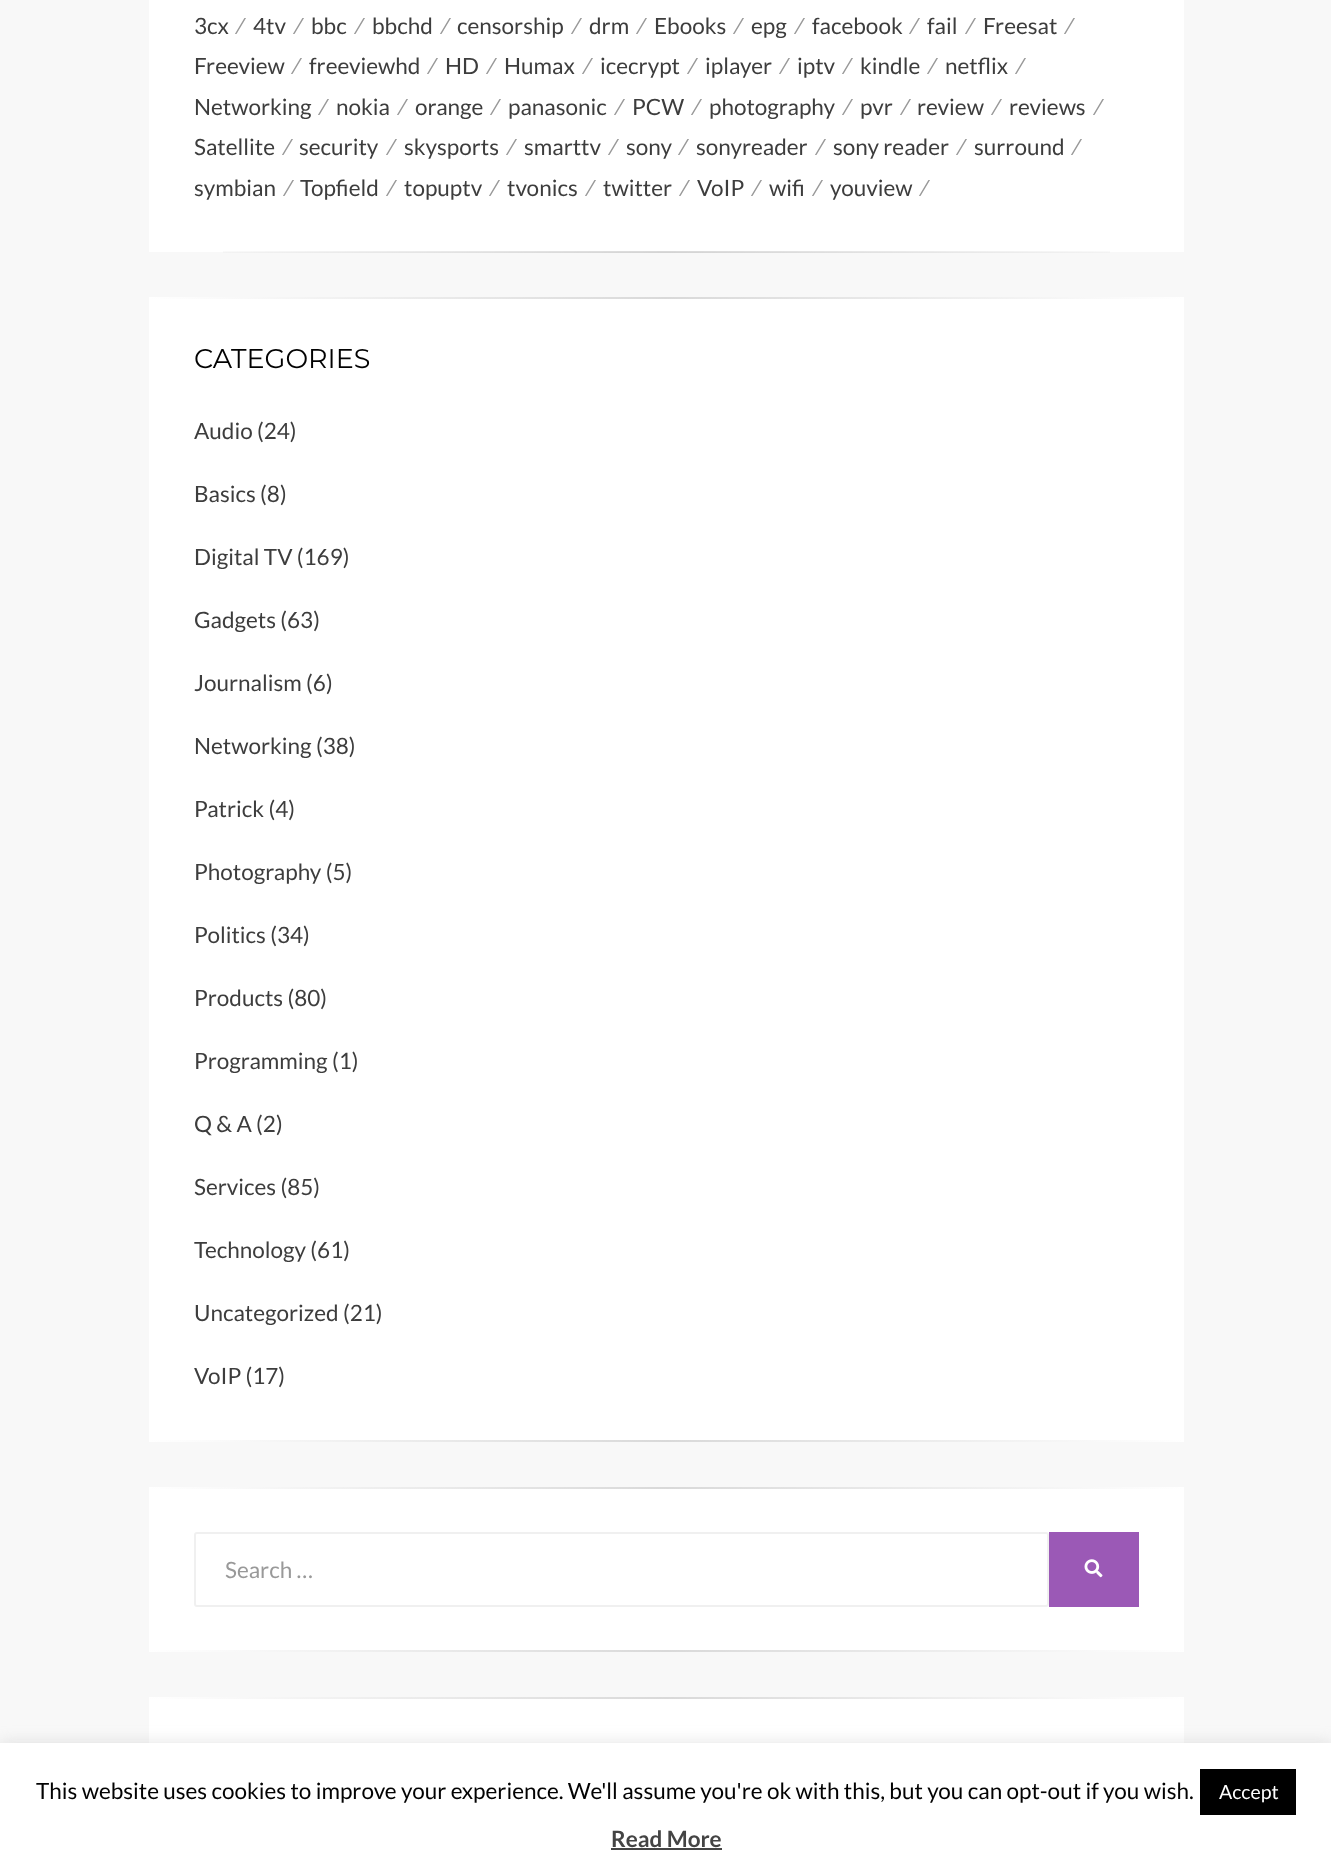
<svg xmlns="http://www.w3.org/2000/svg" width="1331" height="1876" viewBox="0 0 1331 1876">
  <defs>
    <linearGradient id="g1" gradientUnits="userSpaceOnUse" x1="149" y1="251" x2="1184" y2="251"><stop offset="0" stop-color="rgb(0,0,0)" stop-opacity="0"/><stop offset="0.5" stop-color="rgb(0,0,0)" stop-opacity="0.15"/><stop offset="1" stop-color="rgb(0,0,0)" stop-opacity="0"/></linearGradient>
    <linearGradient id="g2" gradientUnits="userSpaceOnUse" x1="149" y1="298" x2="1184" y2="298"><stop offset="0" stop-color="rgb(255,255,255)"/><stop offset="0.5" stop-color="rgb(217,217,217)"/><stop offset="1" stop-color="rgb(255,255,255)"/></linearGradient>
    <linearGradient id="g3" gradientUnits="userSpaceOnUse" x1="149" y1="1441" x2="1184" y2="1441"><stop offset="0" stop-color="rgb(255,255,255)"/><stop offset="0.5" stop-color="rgb(217,217,217)"/><stop offset="1" stop-color="rgb(255,255,255)"/></linearGradient>
    <linearGradient id="g4" gradientUnits="userSpaceOnUse" x1="149" y1="1487" x2="1184" y2="1487"><stop offset="0" stop-color="rgb(255,255,255)"/><stop offset="0.5" stop-color="rgb(217,217,217)"/><stop offset="1" stop-color="rgb(255,255,255)"/></linearGradient>
    <linearGradient id="g5" gradientUnits="userSpaceOnUse" x1="149" y1="1651" x2="1184" y2="1651"><stop offset="0" stop-color="rgb(255,255,255)"/><stop offset="0.5" stop-color="rgb(217,217,217)"/><stop offset="1" stop-color="rgb(255,255,255)"/></linearGradient>
    <linearGradient id="g6" gradientUnits="userSpaceOnUse" x1="149" y1="1697" x2="1184" y2="1697"><stop offset="0" stop-color="rgb(255,255,255)"/><stop offset="0.5" stop-color="rgb(217,217,217)"/><stop offset="1" stop-color="rgb(255,255,255)"/></linearGradient>
  </defs>
  <rect width="100%" height="100%" fill="rgb(248,248,248)"/>
  <rect x="149" y="0" width="1035" height="252" fill="rgb(255,255,255)"/>
  <text x="194" y="34" font-family="Lato" font-size="22.5" fill="rgb(61,61,61)">3cx</text>
  <text x="237" y="34" font-family="Lato" font-size="22.5" fill="rgb(153,153,153)">⁄</text>
  <text x="253" y="34" font-family="Lato" font-size="22.5" fill="rgb(61,61,61)">4tv</text>
  <text x="295" y="34" font-family="Lato" font-size="22.5" fill="rgb(153,153,153)">⁄</text>
  <text x="311" y="34" font-family="Lato" font-size="22.5" fill="rgb(61,61,61)">bbc</text>
  <text x="356" y="34" font-family="Lato" font-size="22.5" fill="rgb(153,153,153)">⁄</text>
  <text x="372" y="34" font-family="Lato" font-size="22.5" fill="rgb(61,61,61)">bbchd</text>
  <text x="442" y="34" font-family="Lato" font-size="22.5" fill="rgb(153,153,153)">⁄</text>
  <text x="457" y="34" font-family="Lato" font-size="22.5" fill="rgb(61,61,61)">censorship</text>
  <text x="573" y="34" font-family="Lato" font-size="22.5" fill="rgb(153,153,153)">⁄</text>
  <text x="589" y="34" font-family="Lato" font-size="22.5" fill="rgb(61,61,61)">drm</text>
  <text x="638" y="34" font-family="Lato" font-size="22.5" fill="rgb(153,153,153)">⁄</text>
  <text x="654" y="34" font-family="Lato" font-size="22.5" fill="rgb(61,61,61)">Ebooks</text>
  <text x="735" y="34" font-family="Lato" font-size="22.5" fill="rgb(153,153,153)">⁄</text>
  <text x="751" y="34" font-family="Lato" font-size="22.5" fill="rgb(61,61,61)">epg</text>
  <text x="796" y="34" font-family="Lato" font-size="22.5" fill="rgb(153,153,153)">⁄</text>
  <text x="812" y="34" font-family="Lato" font-size="22.5" fill="rgb(61,61,61)">facebook</text>
  <text x="911" y="34" font-family="Lato" font-size="22.5" fill="rgb(153,153,153)">⁄</text>
  <text x="927" y="34" font-family="Lato" font-size="22.5" fill="rgb(61,61,61)">fail</text>
  <text x="967" y="34" font-family="Lato" font-size="22.5" fill="rgb(153,153,153)">⁄</text>
  <text x="983" y="34" font-family="Lato" font-size="22.5" fill="rgb(61,61,61)">Freesat</text>
  <text x="1066" y="34" font-family="Lato" font-size="22.5" fill="rgb(153,153,153)">⁄</text>
  <text x="194" y="74" font-family="Lato" font-size="22.5" fill="rgb(61,61,61)">Freeview</text>
  <text x="293" y="74" font-family="Lato" font-size="22.5" fill="rgb(153,153,153)">⁄</text>
  <text x="309" y="74" font-family="Lato" font-size="22.5" fill="rgb(61,61,61)">freeviewhd</text>
  <text x="429" y="74" font-family="Lato" font-size="22.5" fill="rgb(153,153,153)">⁄</text>
  <text x="445" y="74" font-family="Lato" font-size="22.5" fill="rgb(61,61,61)">HD</text>
  <text x="488" y="74" font-family="Lato" font-size="22.5" fill="rgb(153,153,153)">⁄</text>
  <text x="504" y="74" font-family="Lato" font-size="22.5" fill="rgb(61,61,61)">Humax</text>
  <text x="584" y="74" font-family="Lato" font-size="22.5" fill="rgb(153,153,153)">⁄</text>
  <text x="600" y="74" font-family="Lato" font-size="22.5" fill="rgb(61,61,61)">icecrypt</text>
  <text x="689" y="74" font-family="Lato" font-size="22.5" fill="rgb(153,153,153)">⁄</text>
  <text x="705" y="74" font-family="Lato" font-size="22.5" fill="rgb(61,61,61)">iplayer</text>
  <text x="781" y="74" font-family="Lato" font-size="22.5" fill="rgb(153,153,153)">⁄</text>
  <text x="797" y="74" font-family="Lato" font-size="22.5" fill="rgb(61,61,61)">iptv</text>
  <text x="844" y="74" font-family="Lato" font-size="22.5" fill="rgb(153,153,153)">⁄</text>
  <text x="860" y="74" font-family="Lato" font-size="22.5" fill="rgb(61,61,61)">kindle</text>
  <text x="929" y="74" font-family="Lato" font-size="22.5" fill="rgb(153,153,153)">⁄</text>
  <text x="945" y="74" font-family="Lato" font-size="22.5" fill="rgb(61,61,61)">netflix</text>
  <text x="1017" y="74" font-family="Lato" font-size="22.5" fill="rgb(153,153,153)">⁄</text>
  <text x="194" y="115" font-family="Lato" font-size="22.5" fill="rgb(61,61,61)">Networking</text>
  <text x="320" y="115" font-family="Lato" font-size="22.5" fill="rgb(153,153,153)">⁄</text>
  <text x="336" y="115" font-family="Lato" font-size="22.5" fill="rgb(61,61,61)">nokia</text>
  <text x="399" y="115" font-family="Lato" font-size="22.5" fill="rgb(153,153,153)">⁄</text>
  <text x="415" y="115" font-family="Lato" font-size="22.5" fill="rgb(61,61,61)">orange</text>
  <text x="492" y="115" font-family="Lato" font-size="22.5" fill="rgb(153,153,153)">⁄</text>
  <text x="508" y="115" font-family="Lato" font-size="22.5" fill="rgb(61,61,61)">panasonic</text>
  <text x="616" y="115" font-family="Lato" font-size="22.5" fill="rgb(153,153,153)">⁄</text>
  <text x="632" y="115" font-family="Lato" font-size="22.5" fill="rgb(61,61,61)">PCW</text>
  <text x="693" y="115" font-family="Lato" font-size="22.5" fill="rgb(153,153,153)">⁄</text>
  <text x="709" y="115" font-family="Lato" font-size="22.5" fill="rgb(61,61,61)">photography</text>
  <text x="844" y="115" font-family="Lato" font-size="22.5" fill="rgb(153,153,153)">⁄</text>
  <text x="860" y="115" font-family="Lato" font-size="22.5" fill="rgb(61,61,61)">pvr</text>
  <text x="902" y="115" font-family="Lato" font-size="22.5" fill="rgb(153,153,153)">⁄</text>
  <text x="917" y="115" font-family="Lato" font-size="22.5" fill="rgb(61,61,61)">review</text>
  <text x="993" y="115" font-family="Lato" font-size="22.5" fill="rgb(153,153,153)">⁄</text>
  <text x="1009" y="115" font-family="Lato" font-size="22.5" fill="rgb(61,61,61)">reviews</text>
  <text x="1095" y="115" font-family="Lato" font-size="22.5" fill="rgb(153,153,153)">⁄</text>
  <text x="194" y="155" font-family="Lato" font-size="22.5" fill="rgb(61,61,61)">Satellite</text>
  <text x="284" y="155" font-family="Lato" font-size="22.5" fill="rgb(153,153,153)">⁄</text>
  <text x="299" y="155" font-family="Lato" font-size="22.5" fill="rgb(61,61,61)">security</text>
  <text x="388" y="155" font-family="Lato" font-size="22.5" fill="rgb(153,153,153)">⁄</text>
  <text x="404" y="155" font-family="Lato" font-size="22.5" fill="rgb(61,61,61)">skysports</text>
  <text x="508" y="155" font-family="Lato" font-size="22.5" fill="rgb(153,153,153)">⁄</text>
  <text x="524" y="155" font-family="Lato" font-size="22.5" fill="rgb(61,61,61)">smarttv</text>
  <text x="610" y="155" font-family="Lato" font-size="22.5" fill="rgb(153,153,153)">⁄</text>
  <text x="626" y="155" font-family="Lato" font-size="22.5" fill="rgb(61,61,61)">sony</text>
  <text x="680" y="155" font-family="Lato" font-size="22.5" fill="rgb(153,153,153)">⁄</text>
  <text x="696" y="155" font-family="Lato" font-size="22.5" fill="rgb(61,61,61)">sonyreader</text>
  <text x="817" y="155" font-family="Lato" font-size="22.5" fill="rgb(153,153,153)">⁄</text>
  <text x="833" y="155" font-family="Lato" font-size="22.5" fill="rgb(61,61,61)">sony reader</text>
  <text x="958" y="155" font-family="Lato" font-size="22.5" fill="rgb(153,153,153)">⁄</text>
  <text x="974" y="155" font-family="Lato" font-size="22.5" fill="rgb(61,61,61)">surround</text>
  <text x="1073" y="155" font-family="Lato" font-size="22.5" fill="rgb(153,153,153)">⁄</text>
  <text x="194" y="196" font-family="Lato" font-size="22.5" fill="rgb(61,61,61)">symbian</text>
  <text x="285" y="196" font-family="Lato" font-size="22.5" fill="rgb(153,153,153)">⁄</text>
  <text x="300" y="196" font-family="Lato" font-size="22.5" fill="rgb(61,61,61)">Topfield</text>
  <text x="388" y="196" font-family="Lato" font-size="22.5" fill="rgb(153,153,153)">⁄</text>
  <text x="404" y="196" font-family="Lato" font-size="22.5" fill="rgb(61,61,61)">topuptv</text>
  <text x="491" y="196" font-family="Lato" font-size="22.5" fill="rgb(153,153,153)">⁄</text>
  <text x="507" y="196" font-family="Lato" font-size="22.5" fill="rgb(61,61,61)">tvonics</text>
  <text x="587" y="196" font-family="Lato" font-size="22.5" fill="rgb(153,153,153)">⁄</text>
  <text x="603" y="196" font-family="Lato" font-size="22.5" fill="rgb(61,61,61)">twitter</text>
  <text x="681" y="196" font-family="Lato" font-size="22.5" fill="rgb(153,153,153)">⁄</text>
  <text x="697" y="196" font-family="Lato" font-size="22.5" fill="rgb(61,61,61)">VoIP</text>
  <text x="753" y="196" font-family="Lato" font-size="22.5" fill="rgb(153,153,153)">⁄</text>
  <text x="769" y="196" font-family="Lato" font-size="22.5" fill="rgb(61,61,61)">wifi</text>
  <text x="814" y="196" font-family="Lato" font-size="22.5" fill="rgb(153,153,153)">⁄</text>
  <text x="830" y="196" font-family="Lato" font-size="22.5" fill="rgb(61,61,61)">youview</text>
  <text x="921" y="196" font-family="Lato" font-size="22.5" fill="rgb(153,153,153)">⁄</text>
  <rect x="223" y="251" width="887" height="2" fill="url(#g1)"/>
  <rect x="149" y="299" width="1035" height="1141" fill="rgb(255,255,255)"/>
  <rect x="149" y="297" width="1035" height="2" fill="url(#g2)"/>
  <text x="194" y="368" font-family="Montserrat" font-size="27" fill="rgb(2,2,2)">CATEGORIES</text>
  <g font-family="Lato" font-size="22.5" fill="rgb(61,61,61)">
    <text x="194" y="439">Audio (24)</text>
    <text x="194" y="502">Basics (8)</text>
    <text x="194" y="565">Digital TV (169)</text>
    <text x="194" y="628">Gadgets (63)</text>
    <text x="194" y="691">Journalism (6)</text>
    <text x="194" y="754">Networking (38)</text>
    <text x="194" y="817">Patrick (4)</text>
    <text x="194" y="880">Photography (5)</text>
    <text x="194" y="943">Politics (34)</text>
    <text x="194" y="1006">Products (80)</text>
    <text x="194" y="1069">Programming (1)</text>
    <text x="194" y="1132">Q &amp; A (2)</text>
    <text x="194" y="1195">Services (85)</text>
    <text x="194" y="1258">Technology (61)</text>
    <text x="194" y="1321">Uncategorized (21)</text>
    <text x="194" y="1384">VoIP (17)</text>
  </g>
  <rect x="149" y="1440" width="1035" height="2" fill="url(#g3)"/>
  <rect x="149" y="1489" width="1035" height="161" fill="rgb(255,255,255)"/>
  <rect x="149" y="1487" width="1035" height="2" fill="url(#g4)"/>
  <rect x="195" y="1533" width="853" height="73" rx="2" fill="none" stroke="rgb(240,240,240)" stroke-width="2"/>
  <text x="225" y="1578" font-family="Lato" font-size="22.5" fill="rgb(153,153,153)">Search …</text>
  <rect x="1049" y="1532" width="90" height="75" fill="rgb(155,89,182)"/>
  <image x="1084" y="1559" width="19" height="19" href="pic1.png"/>
  <rect x="149" y="1650" width="1035" height="2" fill="url(#g5)"/>
  <rect x="149" y="1699" width="1035" height="44" fill="rgb(255,255,255)"/>
  <rect x="149" y="1697" width="1035" height="2" fill="url(#g6)"/>
  <rect x="0" y="1742" width="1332" height="133" fill="rgba(172,171,171,0.3)" filter="blur(7.5px)"/>
  <rect x="0" y="1743" width="1331" height="133" fill="rgb(255,255,255)"/>
  <text x="36" y="1799" font-family="Lato" font-size="22.5" fill="rgb(2,2,2)">This website uses cookies to improve your experience. We'll assume you're ok with this, but you can opt-out if you wish.</text>
  <rect x="1200" y="1769" width="96" height="46" fill="rgb(0,0,0)"/>
  <text x="1219" y="1799" font-family="Lato" font-size="19.5" fill="rgb(255,255,255)">Accept</text>
  <text x="611" y="1847" font-family="Lato" font-size="22.5" font-weight="bold" fill="rgb(68,68,68)">Read More</text>
  <rect x="611" y="1848" width="111" height="2" fill="rgb(68,68,68)"/>
</svg>
